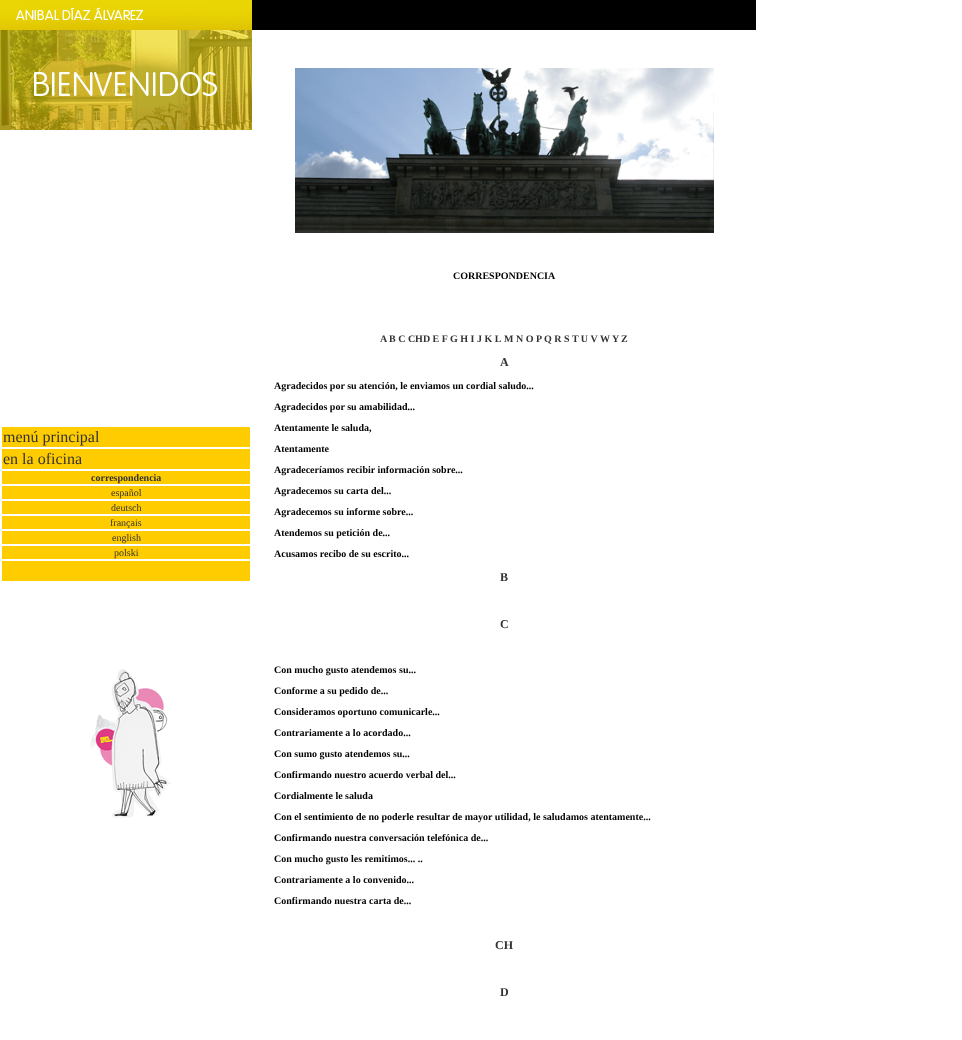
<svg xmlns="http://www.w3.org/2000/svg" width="962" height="1040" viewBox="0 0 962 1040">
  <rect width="100%" height="100%" fill="rgb(255,255,255)"/>
  <rect x="252" y="0" width="504" height="30" fill="rgb(0,0,0)"/>
  <image x="0" y="0" width="252" height="30" href="pic1.png"/>
  <rect x="2" y="427" width="248" height="20" fill="rgb(255,204,0)"/>
  <text x="3" y="442" font-family="Liberation Serif" font-size="16" fill="rgb(51,51,51)">menú principal</text>
  <rect x="2" y="449" width="248" height="20" fill="rgb(255,204,0)"/>
  <text x="3" y="464" font-family="Liberation Serif" font-size="16" fill="rgb(51,51,51)">en la oficina</text>
  <rect x="2" y="471" width="248" height="13" fill="rgb(255,204,0)"/>
  <text x="91" y="481" font-family="Liberation Serif" font-size="10" font-weight="bold" fill="rgb(51,51,51)">correspondencia</text>
  <rect x="2" y="486" width="248" height="13" fill="rgb(255,204,0)"/>
  <text x="111" y="496" font-family="Liberation Serif" font-size="10" fill="rgb(51,51,51)">español</text>
  <rect x="2" y="501" width="248" height="13" fill="rgb(255,204,0)"/>
  <text x="111" y="511" font-family="Liberation Serif" font-size="10" fill="rgb(51,51,51)">deutsch</text>
  <rect x="2" y="516" width="248" height="13" fill="rgb(255,204,0)"/>
  <text x="110" y="526" font-family="Liberation Serif" font-size="10" fill="rgb(51,51,51)">français</text>
  <rect x="2" y="531" width="248" height="13" fill="rgb(255,204,0)"/>
  <text x="112" y="541" font-family="Liberation Serif" font-size="10" fill="rgb(51,51,51)">english</text>
  <rect x="2" y="546" width="248" height="13" fill="rgb(255,204,0)"/>
  <text x="114" y="556" font-family="Liberation Serif" font-size="10" fill="rgb(51,51,51)">polski</text>
  <rect x="2" y="561" width="248" height="20" fill="rgb(255,204,0)"/>
  <image x="90" y="669" width="82" height="149" href="pic2.png"/>
  <image x="0" y="30" width="252" height="100" href="pic3.png"/>
  <image x="295" y="68" width="419" height="165" href="pic4.png"/>
  <text x="453" y="279" font-family="Liberation Serif" font-size="10" font-weight="bold" fill="rgb(0,0,0)">CORRESPONDENCIA</text>
  <g font-family="Liberation Serif" font-size="10" font-weight="bold" fill="rgb(51,51,51)">
    <text x="380" y="342">A</text>
    <text x="389" y="342">B C CHD E F</text>
    <text x="450" y="342">G H I J K L</text>
    <text x="504" y="342">M N O P</text>
    <text x="544" y="342">Q R S T U V</text>
    <text x="600" y="342">W</text>
    <text x="612" y="342">Y</text>
    <text x="621" y="342">Z</text>
  </g>
  <text x="500" y="366" font-family="Liberation Serif" font-size="12" font-weight="bold" fill="rgb(51,51,51)">A</text>
  <g font-family="Liberation Serif" font-size="10" font-weight="bold" fill="rgb(0,0,0)">
    <text x="274" y="389">Agradecidos por su atención, le enviamos un cordial saludo...</text>
    <text x="274" y="410">Agradecidos por su amabilidad...</text>
    <text x="274" y="431">Atentamente le saluda,</text>
    <text x="274" y="452">Atentamente</text>
    <text x="274" y="473">Agradeceríamos recibir información sobre...</text>
    <text x="274" y="494">Agradecemos su carta del...</text>
    <text x="274" y="515">Agradecemos su informe sobre...</text>
    <text x="274" y="536">Atendemos su petición de...</text>
    <text x="274" y="557">Acusamos recibo de su escrito...</text>
  </g>
  <g font-family="Liberation Serif" font-size="12" font-weight="bold" fill="rgb(51,51,51)">
    <text x="500" y="581">B</text>
    <text x="500" y="628">C</text>
  </g>
  <g font-family="Liberation Serif" font-size="10" font-weight="bold" fill="rgb(0,0,0)">
    <text x="274" y="673">Con mucho gusto atendemos su...</text>
    <text x="274" y="694">Conforme a su pedido de...</text>
    <text x="274" y="715">Consideramos oportuno comunicarle...</text>
    <text x="274" y="736">Contrariamente a lo acordado...</text>
    <text x="274" y="757">Con sumo gusto atendemos su...</text>
    <text x="274" y="778">Confirmando nuestro acuerdo verbal del...</text>
    <text x="274" y="799">Cordialmente le saluda</text>
    <text x="274" y="820">Con el sentimiento de no poderle resultar de mayor utilidad, le saludamos atentamente...</text>
    <text x="274" y="841">Confirmando nuestra conversación telefónica de...</text>
    <text x="274" y="862">Con mucho gusto les remitimos... ..</text>
    <text x="274" y="883">Contrariamente a lo convenido...</text>
    <text x="274" y="904">Confirmando nuestra carta de...</text>
  </g>
  <g font-family="Liberation Serif" font-size="12" font-weight="bold" fill="rgb(51,51,51)">
    <text x="495" y="949">CH</text>
    <text x="500" y="996">D</text>
  </g>
</svg>
